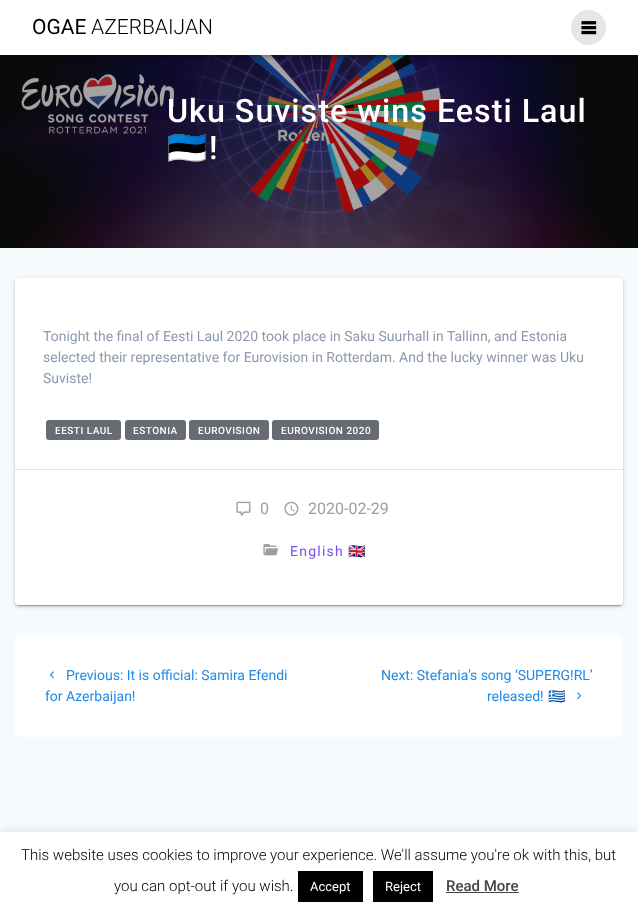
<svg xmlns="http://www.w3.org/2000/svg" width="638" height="919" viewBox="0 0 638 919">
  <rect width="100%" height="100%" fill="rgb(255,255,255)"/>
  <image x="0" y="55" width="638" height="193" href="pic2.png"/>
  <rect x="-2" y="-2" width="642" height="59" fill="rgba(0,0,0,0.33)" filter="blur(2.5px)"/>
  <rect x="0" y="0" width="638" height="55" fill="rgb(255,255,255)"/>
  <text x="32" y="34" font-family="Roboto" font-size="21" fill="rgb(0,0,0)">OGAE</text>
  <text x="91" y="34" font-family="Roboto" font-size="21" font-weight="300" fill="rgb(0,0,0)">AZERBAIJAN</text>
  <circle cx="588.5" cy="27.5" r="17.5" fill="rgb(230,230,230)"/>
  <image x="581" y="21" width="16" height="14" href="pic1.png"/>
  <text x="167" y="122" font-family="Roboto" font-size="32.25" font-weight="500" letter-spacing="1" fill="rgb(255,255,255)">Uku Suviste wins Eesti Laul</text>
  <text x="167" y="159" font-family="Noto Color Emoji" font-size="32.25" letter-spacing="1" fill="rgb(255,255,255)">🇪🇪</text>
  <text x="209" y="159" font-family="Roboto" font-size="32.25" font-weight="500" letter-spacing="1" fill="rgb(255,255,255)">!</text>
  <rect x="0" y="248" width="638" height="584" fill="rgb(245,250,253)"/>
  <rect x="15" y="279" width="608" height="327" rx="4" fill="rgba(0,0,0,0.12)" filter="blur(2.5px)"/>
  <rect x="15" y="280" width="608" height="327" rx="4" fill="rgba(0,0,0,0.14)" filter="blur(1px)"/>
  <rect x="17" y="283" width="604" height="323" rx="2" fill="rgba(0,0,0,0.2)" filter="blur(0.5px)"/>
  <rect x="15" y="278" width="608" height="327" rx="4" fill="rgb(255,255,255)"/>
  <g font-family="Roboto" font-size="14" fill="rgb(141,153,174)">
    <text>
      <tspan x="43" y="341">Tonight the final of Eesti Laul 2020 took place in Saku Suurhall in Tallinn, and Estonia</tspan>
      <tspan x="43" y="362">selected their representative for Eurovision in Rotterdam. And the lucky winner was Uku</tspan>
      <tspan x="43" y="383">Suviste!</tspan>
    </text>
  </g>
  <rect x="46" y="420" width="75" height="20" rx="3" fill="rgb(103,107,114)"/>
  <text x="55" y="434" font-family="Roboto" font-size="10" font-weight="500" letter-spacing="0.5" fill="rgb(255,255,255)">EESTI LAUL</text>
  <rect x="125" y="420" width="61" height="20" rx="3" fill="rgb(103,107,114)"/>
  <text x="133" y="434" font-family="Roboto" font-size="10" font-weight="500" letter-spacing="0.5" fill="rgb(255,255,255)">ESTONIA</text>
  <rect x="189" y="420" width="80" height="20" rx="3" fill="rgb(103,107,114)"/>
  <text x="198" y="434" font-family="Roboto" font-size="10" font-weight="500" letter-spacing="0.5" fill="rgb(255,255,255)">EUROVISION</text>
  <rect x="272" y="420" width="107" height="20" rx="3" fill="rgb(103,107,114)"/>
  <text x="281" y="434" font-family="Roboto" font-size="10" font-weight="500" letter-spacing="0.5" fill="rgb(255,255,255)">EUROVISION 2020</text>
  <rect x="15" y="469" width="608" height="1" fill="rgb(224,225,225)"/>
  <image x="236" y="501" width="15" height="15" href="pic3.png"/>
  <text x="260" y="514" font-family="Roboto" font-size="16" fill="rgb(158,158,158)">0</text>
  <image x="284" y="501" width="15" height="15" href="pic4.png"/>
  <text x="308" y="514" font-family="Roboto" font-size="16" fill="rgb(158,158,158)">2020-02-29</text>
  <image x="263" y="544" width="16" height="12" href="pic5.png"/>
  <text x="290" y="556" font-family="Roboto" font-size="14" letter-spacing="1.25" fill="rgb(121,80,242)">English</text>
  <text x="348" y="556" font-family="Noto Color Emoji" font-size="14" letter-spacing="1.25" fill="rgb(121,80,242)">🇬🇧</text>
  <rect x="15" y="635" width="608" height="102" rx="4" fill="rgb(255,255,255)"/>
  <image x="49" y="671" width="5" height="8" href="pic6.png"/>
  <g font-family="Roboto" font-size="14" fill="rgb(34,138,230)">
    <text x="66" y="680">Previous: It is official: Samira Efendi</text>
    <text x="45" y="701">for Azerbaijan!</text>
    <text x="381" y="680">Next: Stefania’s song ‘SUPERG!RL’</text>
    <text x="487" y="701">released!</text>
  </g>
  <text x="548" y="701" font-family="Noto Color Emoji" font-size="14" fill="rgb(34,138,230)">🇬🇷</text>
  <image x="577" y="692" width="5" height="8" href="pic7.png"/>
  <rect x="0" y="831" width="638" height="87" fill="rgba(172,171,171,0.3)" filter="blur(5px)"/>
  <rect x="0" y="832" width="638" height="87" fill="rgb(255,255,255)"/>
  <g font-family="Roboto" font-size="15" font-weight="300" fill="rgb(0,0,0)">
    <text x="21" y="860">This website uses cookies to improve your experience. We'll assume you're ok with this, but</text>
    <text x="114" y="891">you can opt-out if you wish.</text>
  </g>
  <rect x="298" y="871" width="65" height="31" fill="rgb(0,0,0)"/>
  <text x="310" y="891" font-family="Roboto" font-size="13" fill="rgb(255,255,255)">Accept</text>
  <rect x="373" y="871" width="60" height="31" fill="rgb(0,0,0)"/>
  <text x="385" y="891" font-family="Roboto" font-size="13" fill="rgb(255,255,255)">Reject</text>
  <text x="446" y="891" font-family="Roboto" font-size="15" font-weight="500" fill="rgb(68,68,68)">Read More</text>
  <rect x="446" y="892" width="73" height="1" fill="rgb(68,68,68)"/>
</svg>
